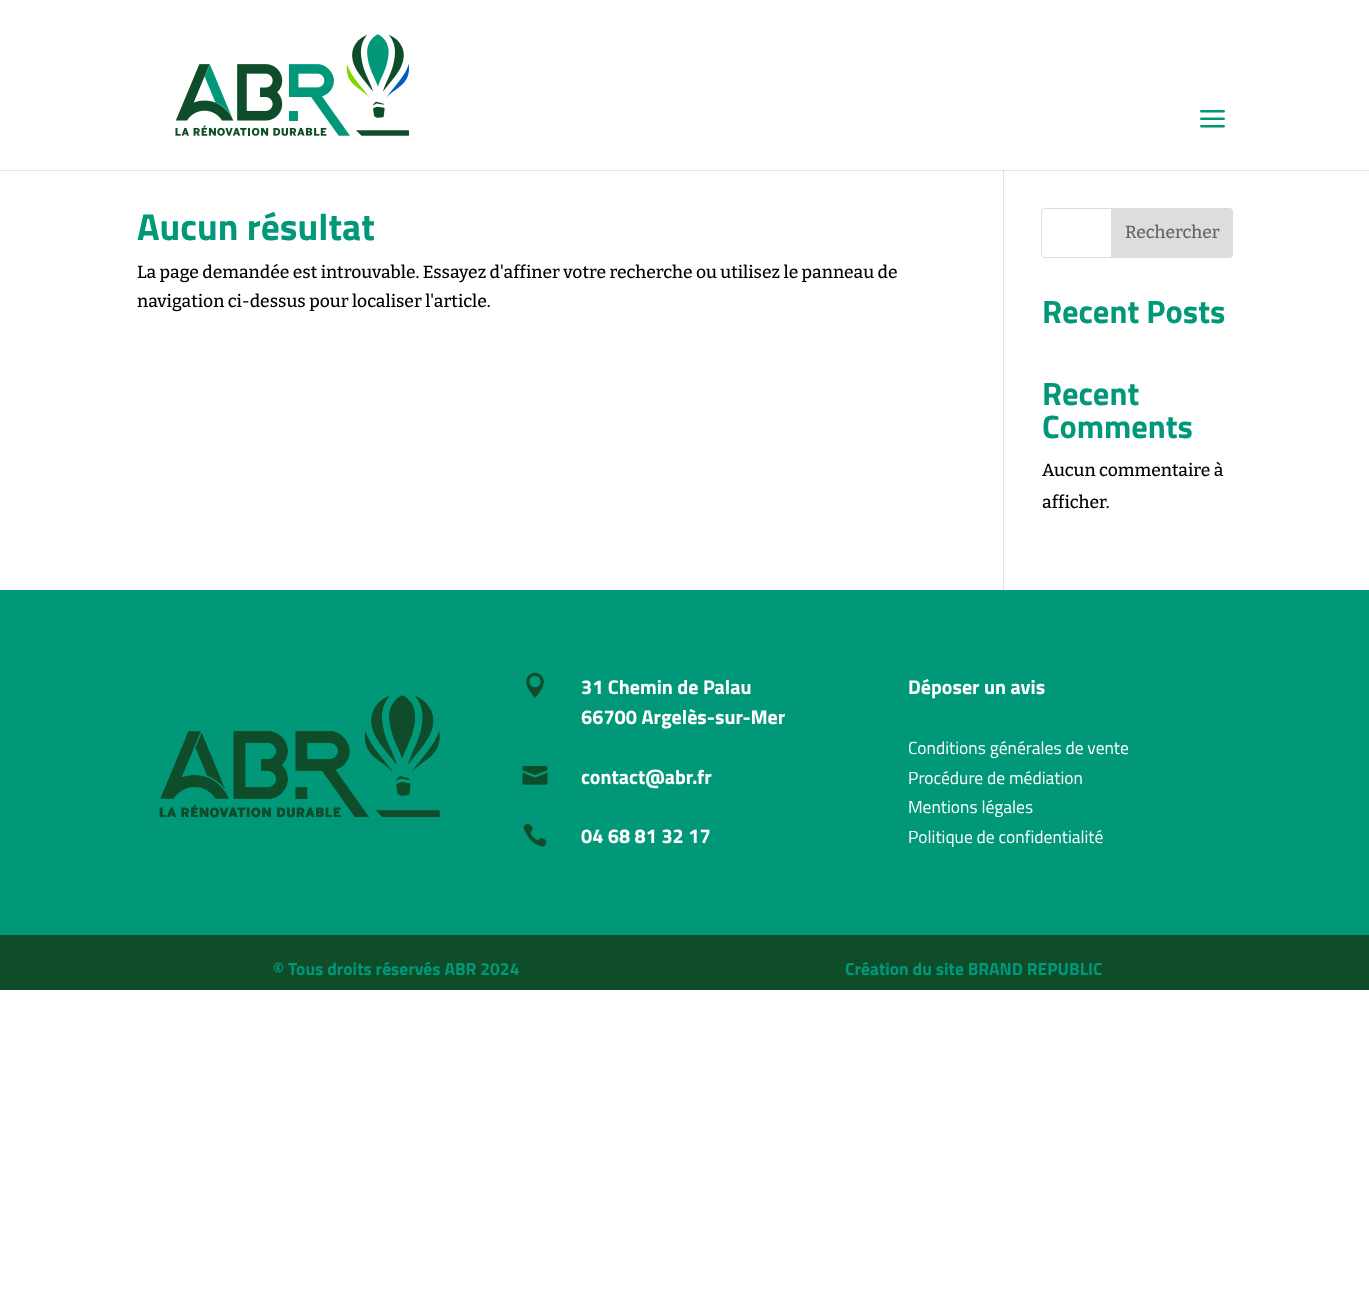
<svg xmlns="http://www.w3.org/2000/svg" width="1369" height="1299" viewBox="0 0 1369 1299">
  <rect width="100%" height="100%" fill="rgb(255,255,255)"/>
  <rect x="0" y="170" width="1369" height="1" fill="rgb(230,230,230)"/>
  <image x="175" y="34" width="235" height="102" href="pic1.png"/>
  <image x="1200" y="110" width="25" height="18" href="pic2.png"/>
  <rect x="1003" y="171" width="1" height="419" fill="rgb(226,226,226)"/>
  <rect x="1003" y="170" width="1" height="1" fill="rgb(203,203,203)"/>
  <text x="137" y="240" font-family="Titillium Web" font-size="37.5" font-weight="bold" fill="rgb(0,152,120)">Aucun résultat</text>
  <g font-family="Bitter" font-size="17.5" font-weight="500" fill="rgb(0,0,0)">
    <text>
      <tspan x="137" y="278">La page demandée est introuvable. Essayez d'affiner votre recherche ou utilisez le panneau de</tspan>
      <tspan x="137" y="307">navigation ci-dessus pour localiser l'article.</tspan>
    </text>
  </g>
  <rect x="1041.5" y="208.5" width="191" height="49" rx="3.5" fill="none" stroke="rgb(221,221,221)"/>
  <path d="M1111.5 208.5H1229C1231 208.5 1232.5 210 1232.5 212V254C1232.5 256 1231 257.5 1229 257.5H1111.5Z" fill="rgb(221,221,221)" stroke="rgb(221,221,221)"/>
  <text x="1125" y="238" font-family="Bitter" font-size="17.5" font-weight="500" fill="rgb(102,102,102)">Rechercher</text>
  <g font-family="Titillium Web" font-size="32.5" font-weight="bold" fill="rgb(0,152,120)">
    <text x="1042" y="323">Recent Posts</text>
    <text>
      <tspan x="1042" y="405">Recent</tspan>
      <tspan x="1042" y="438">Comments</tspan>
    </text>
  </g>
  <g font-family="Bitter" font-size="17.5" font-weight="500" fill="rgb(0,0,0)">
    <text>
      <tspan x="1042" y="476">Aucun commentaire à</tspan>
      <tspan x="1042" y="508">afficher.</tspan>
    </text>
  </g>
  <rect x="0" y="590" width="1369" height="345" fill="rgb(0,152,120)"/>
  <image x="159" y="695" width="281" height="123" href="pic3.png"/>
  <image x="526" y="672" width="18" height="26" href="pic4.png"/>
  <g font-family="Titillium Web" font-size="20" font-weight="bold" fill="rgb(255,255,255)">
    <text>
      <tspan x="581" y="694">31 Chemin de Palau</tspan>
      <tspan x="581" y="724">66700 Argelès-sur-Mer</tspan>
    </text>
  </g>
  <image x="522" y="765" width="26" height="20" href="pic5.png"/>
  <text x="581" y="784" font-family="Titillium Web" font-size="20" font-weight="bold" fill="rgb(255,255,255)">contact@abr.fr</text>
  <image x="523" y="823" width="24" height="24" href="pic6.png"/>
  <g font-family="Titillium Web" font-size="20" font-weight="bold" fill="rgb(255,255,255)">
    <text x="581" y="843">04 68 81 32 17</text>
    <text x="908" y="694">Déposer un avis</text>
  </g>
  <g font-family="Titillium Web" font-size="17.5" fill="rgb(255,255,255)">
    <text>
      <tspan x="908" y="754">Conditions générales de vente</tspan>
      <tspan x="908" y="784">Procédure de médiation</tspan>
      <tspan x="908" y="813">Mentions légales</tspan>
      <tspan x="908" y="843">Politique de confidentialité</tspan>
    </text>
  </g>
  <rect x="0" y="935" width="1369" height="55" fill="rgb(15,77,42)"/>
  <g font-family="Titillium Web" font-size="17.5" font-weight="bold" fill="rgb(0,152,120)">
    <text x="273" y="975">© Tous droits réservés ABR 2024</text>
    <text x="845" y="975">Création du site BRAND REPUBLIC</text>
  </g>
</svg>
